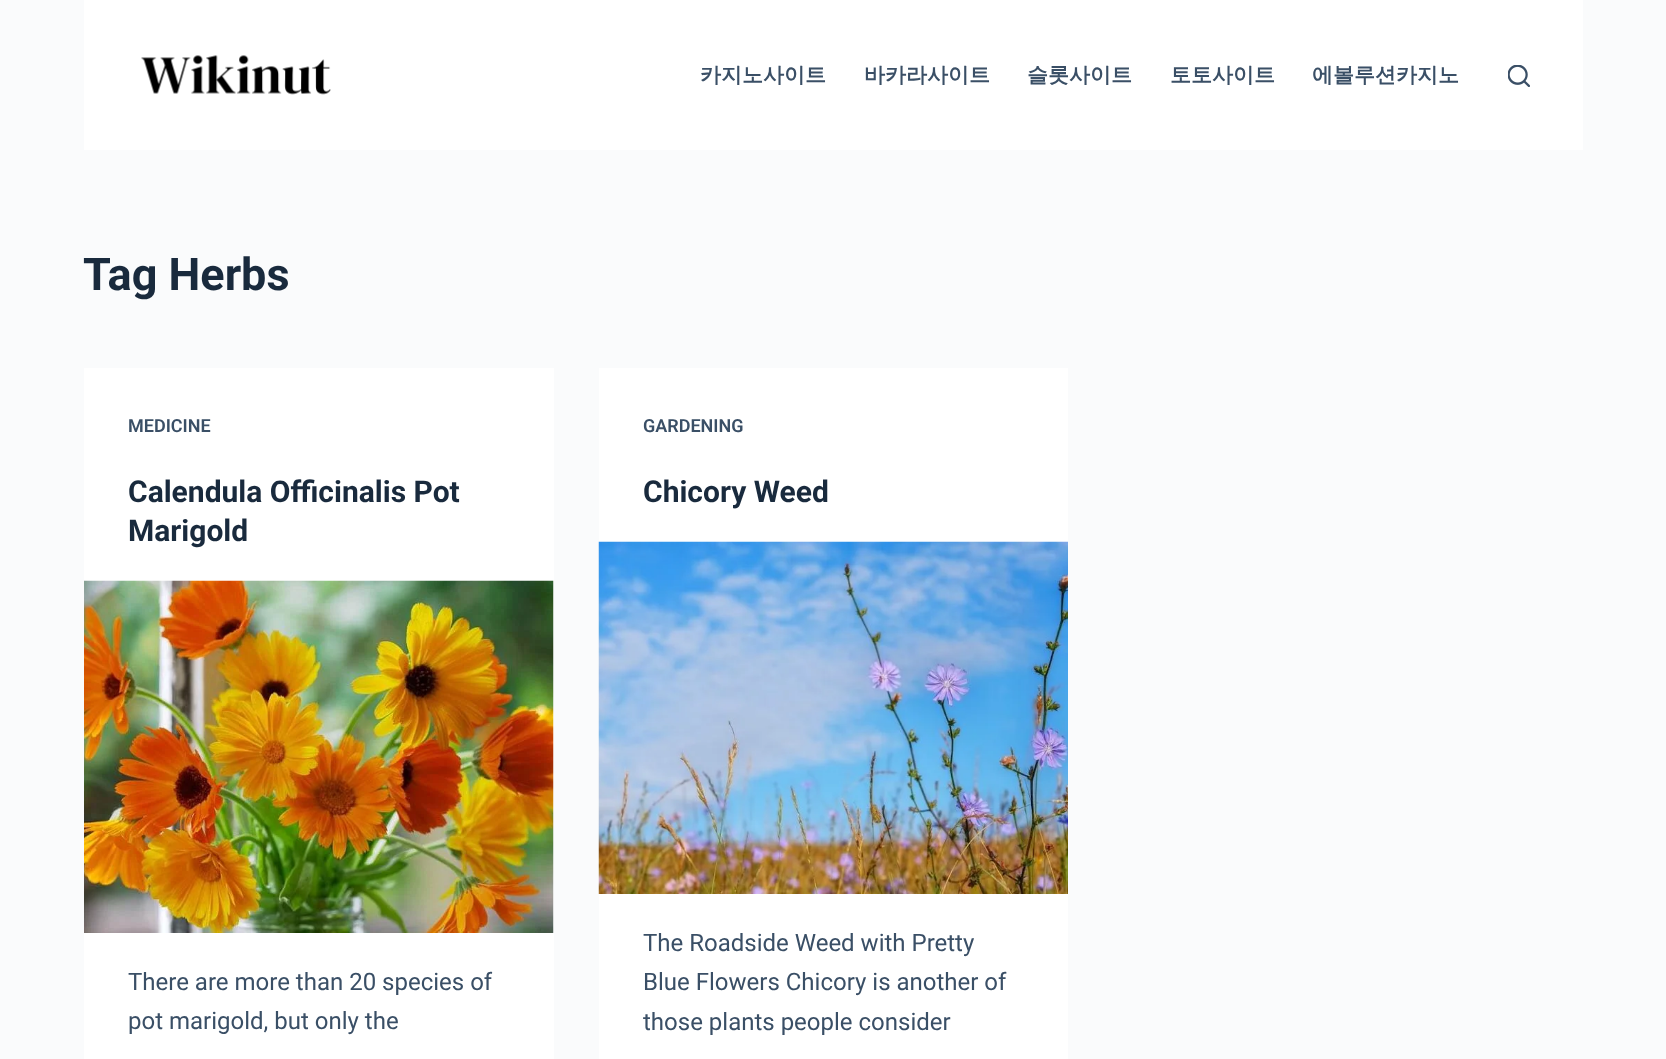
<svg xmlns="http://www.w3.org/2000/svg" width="1666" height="1059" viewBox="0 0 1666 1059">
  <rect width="100%" height="100%" fill="rgb(250,251,252)"/>
  <rect x="84" y="0" width="1499" height="150" fill="rgb(255,255,255)"/>
  <image x="141" y="55" width="190" height="40" href="pic1.png"/>
  <g font-family="WenQuanYi Zen Hei" font-size="21" font-weight="bold" fill="rgb(58,79,102)">
    <text x="700" y="82">카지노사이트</text>
    <text x="864" y="82">바카라사이트</text>
    <text x="1027" y="82">슬롯사이트</text>
    <text x="1170" y="82">토토사이트</text>
    <text x="1312" y="82">에볼루션카지노</text>
  </g>
  <image x="1508" y="65" width="22" height="22" href="pic2.png"/>
  <text x="83" y="290" font-family="Roboto" font-size="45" font-weight="bold" fill="rgb(25,42,61)">Tag Herbs</text>
  <rect x="84" y="368" width="470" height="691" fill="rgb(255,255,255)"/>
  <text x="128" y="432" font-family="Roboto" font-size="18" font-weight="600" fill="rgb(58,79,102)">MEDICINE</text>
  <g font-family="Roboto" font-size="30" font-weight="bold" fill="rgb(25,42,61)">
    <text>
      <tspan x="128" y="502">Calendula Officinalis Pot</tspan>
      <tspan x="128" y="541">Marigold</tspan>
    </text>
  </g>
  <image x="84" y="580" width="470" height="353" href="pic3.png"/>
  <g font-family="Roboto" font-size="24" fill="rgb(58,79,102)">
    <text>
      <tspan x="128" y="990">There are more than 20 species of</tspan>
      <tspan x="128" y="1029">pot marigold, but only the</tspan>
    </text>
  </g>
  <rect x="599" y="368" width="469" height="691" fill="rgb(255,255,255)"/>
  <text x="643" y="432" font-family="Roboto" font-size="18" font-weight="600" fill="rgb(58,79,102)">GARDENING</text>
  <text x="643" y="502" font-family="Roboto" font-size="30" font-weight="bold" fill="rgb(25,42,61)">Chicory Weed</text>
  <image x="598" y="541" width="470" height="353" href="pic4.png"/>
  <g font-family="Roboto" font-size="24" fill="rgb(58,79,102)">
    <text>
      <tspan x="643" y="951">The Roadside Weed with Pretty</tspan>
      <tspan x="643" y="990">Blue Flowers Chicory is another of</tspan>
      <tspan x="643" y="1030">those plants people consider</tspan>
    </text>
  </g>
</svg>
